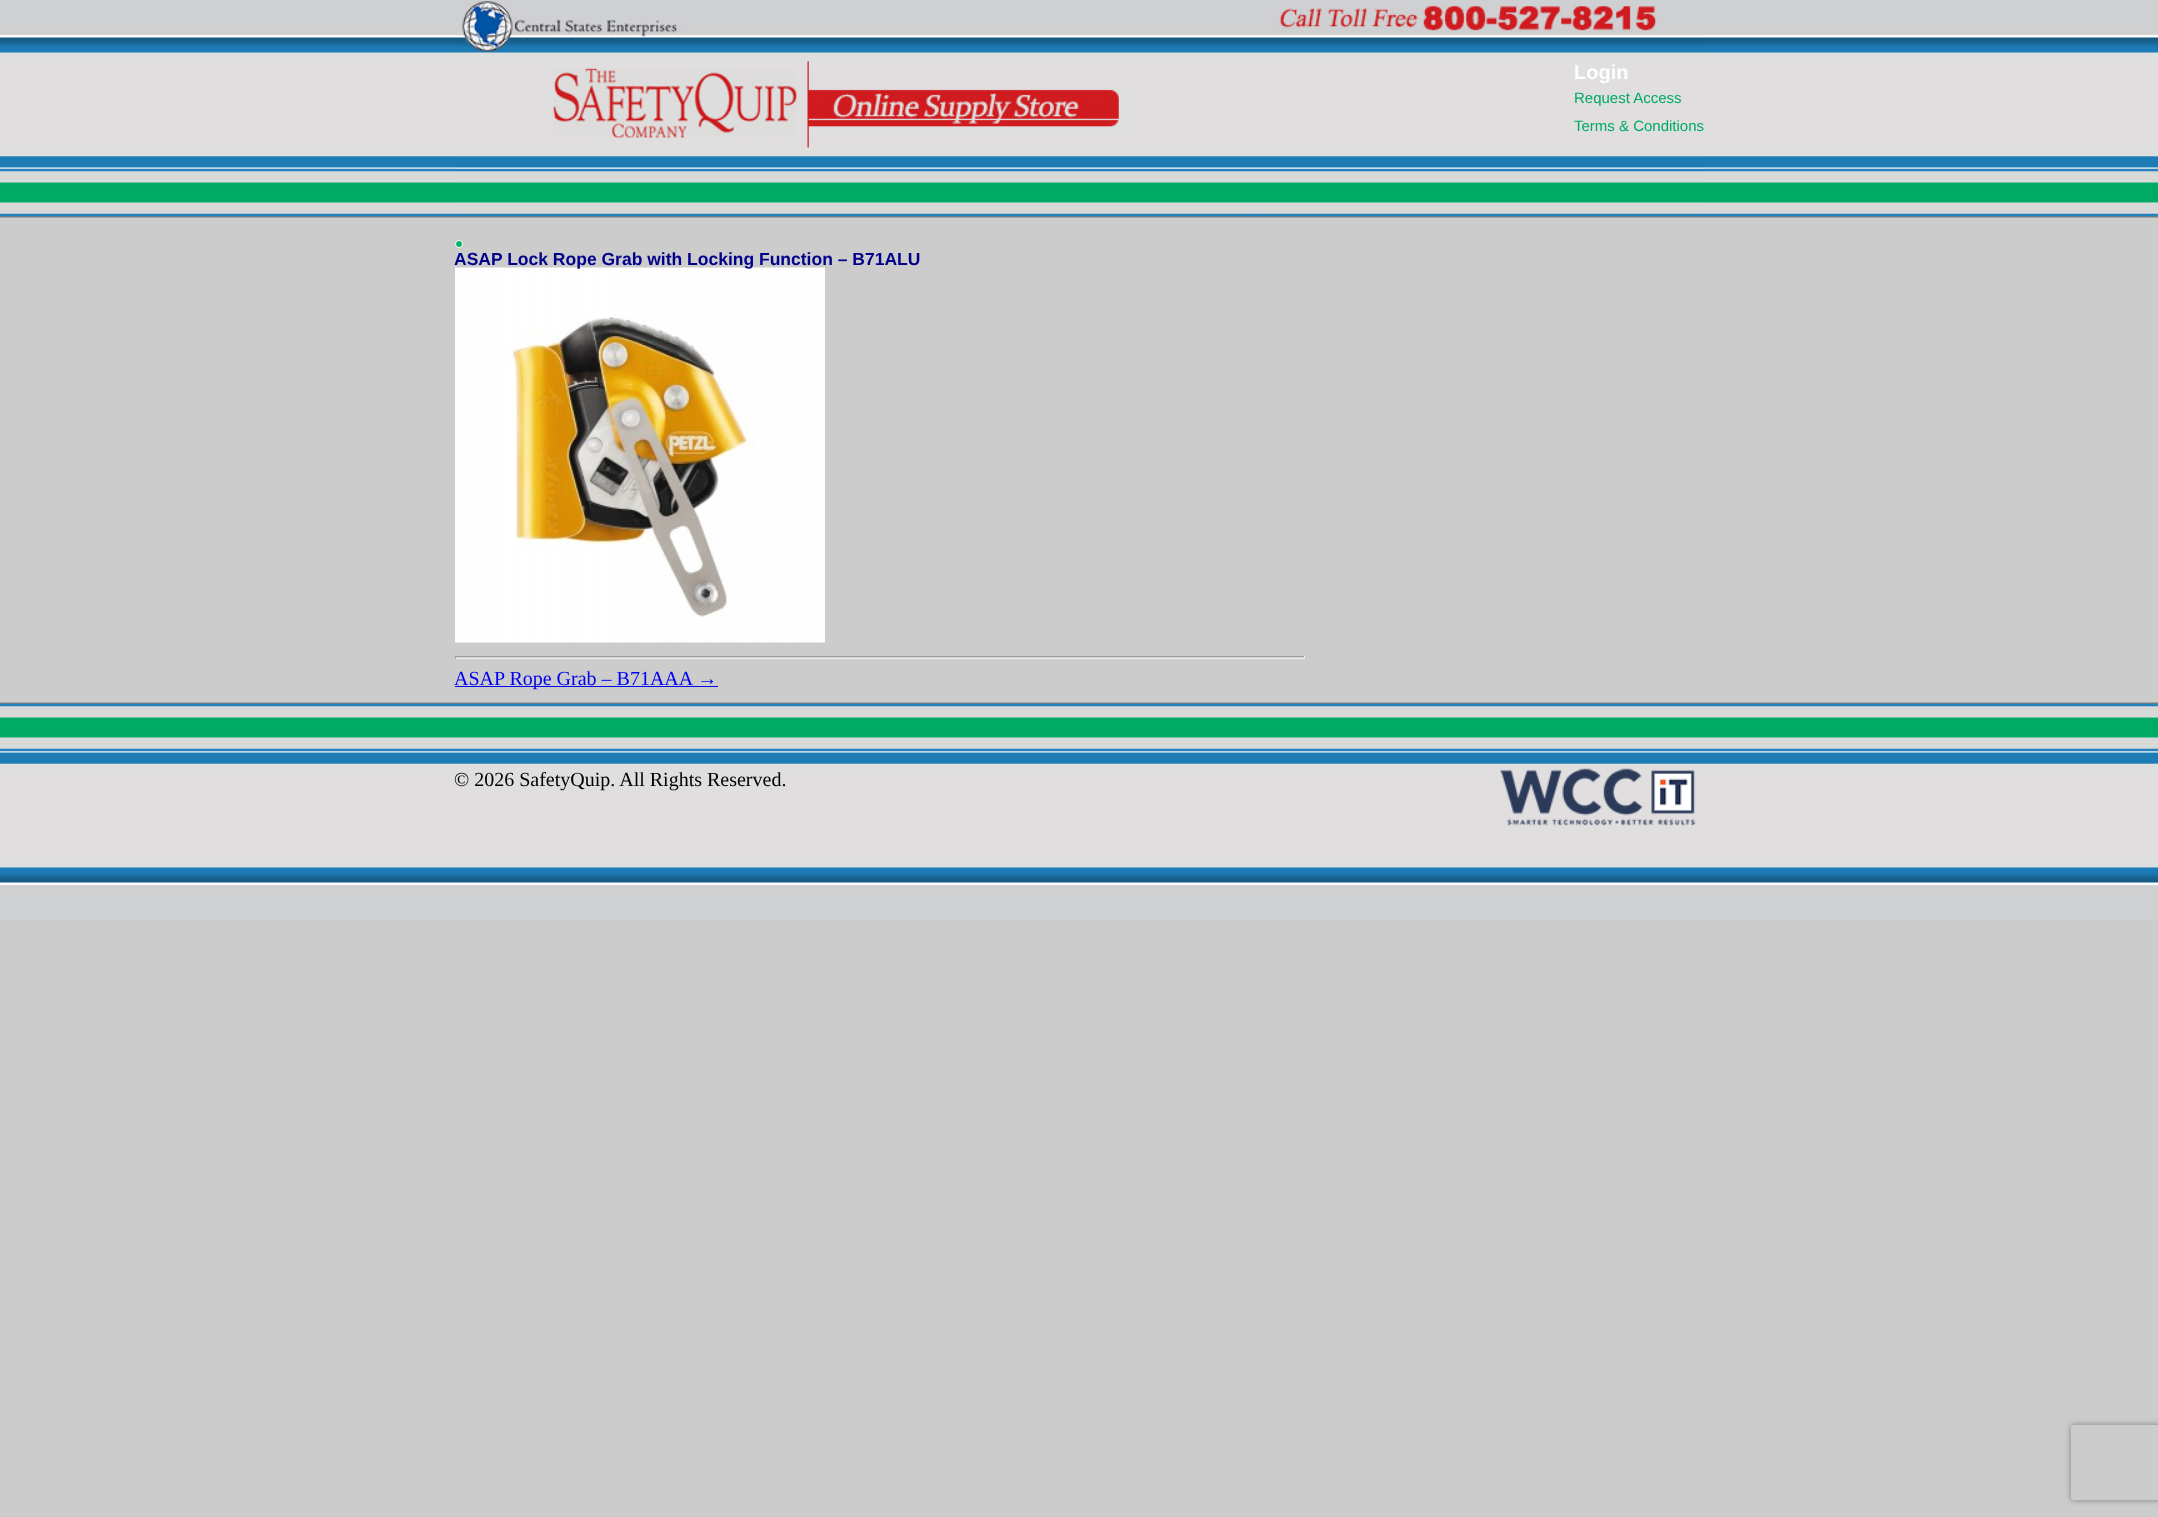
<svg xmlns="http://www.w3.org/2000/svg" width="2158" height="1517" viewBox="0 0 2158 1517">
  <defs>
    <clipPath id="clip1"><path d="M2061 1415H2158V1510H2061ZM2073.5 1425H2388.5C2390 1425 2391 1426 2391 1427.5V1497.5C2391 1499 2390 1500 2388.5 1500H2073.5C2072 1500 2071 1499 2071 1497.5V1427.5C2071 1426 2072 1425 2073.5 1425Z" clip-rule="evenodd"/></clipPath>
  </defs>
  <rect width="100%" height="100%" fill="rgb(204,204,204)"/>
  <image x="0" y="0" width="2158" height="218" href="pic1.png"/>
  <image x="455" y="1" width="1250" height="213" href="pic2.png"/>
  <text x="1574" y="79" font-family="Liberation Sans" font-size="20" font-weight="bold" fill="rgb(255,255,255)">Login</text>
  <g font-family="Liberation Sans" font-size="15" fill="rgb(0,171,101)">
    <text>
      <tspan x="1574" y="103">Request Access</tspan>
      <tspan x="1574" y="131">Terms &amp; Conditions</tspan>
    </text>
  </g>
  <circle cx="459" cy="244" r="3.5" fill="rgb(0,171,101)" stroke="rgb(255,255,255)"/>
  <image x="455" y="267" width="370" height="376" href="pic3.png"/>
  <text x="454" y="265" font-family="Liberation Sans" font-size="17.5" font-weight="bold" fill="rgb(0,0,139)">ASAP Lock Rope Grab with Locking Function – B71ALU</text>
  <rect x="455" y="656" width="850" height="1" fill="rgb(159,159,159)"/>
  <rect x="1304" y="656" width="1" height="3" fill="rgb(238,238,238)"/>
  <rect x="455" y="658" width="850" height="1" fill="rgb(238,238,238)"/>
  <rect x="455" y="656" width="1" height="3" fill="rgb(159,159,159)"/>
  <rect x="455" y="686" width="263" height="1" fill="rgb(0,0,238)"/>
  <text x="454" y="685" font-family="Liberation Serif" font-size="20" fill="rgb(0,0,238)">ASAP Rope Grab – B71AAA →</text>
  <image x="0" y="702" width="2158" height="218" href="pic4.png"/>
  <text x="454" y="786" font-family="Liberation Serif" font-size="20" fill="rgb(0,0,0)">© 2026 SafetyQuip. All Rights Reserved.</text>
  <image x="1500" y="768" width="196" height="58" href="pic5.png"/>
  <g clip-path="url(#clip1)">
    <rect x="2071" y="1425" width="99" height="75" rx="2.5" fill="rgb(128,128,128)" filter="blur(3px)"/>
  </g>
</svg>
